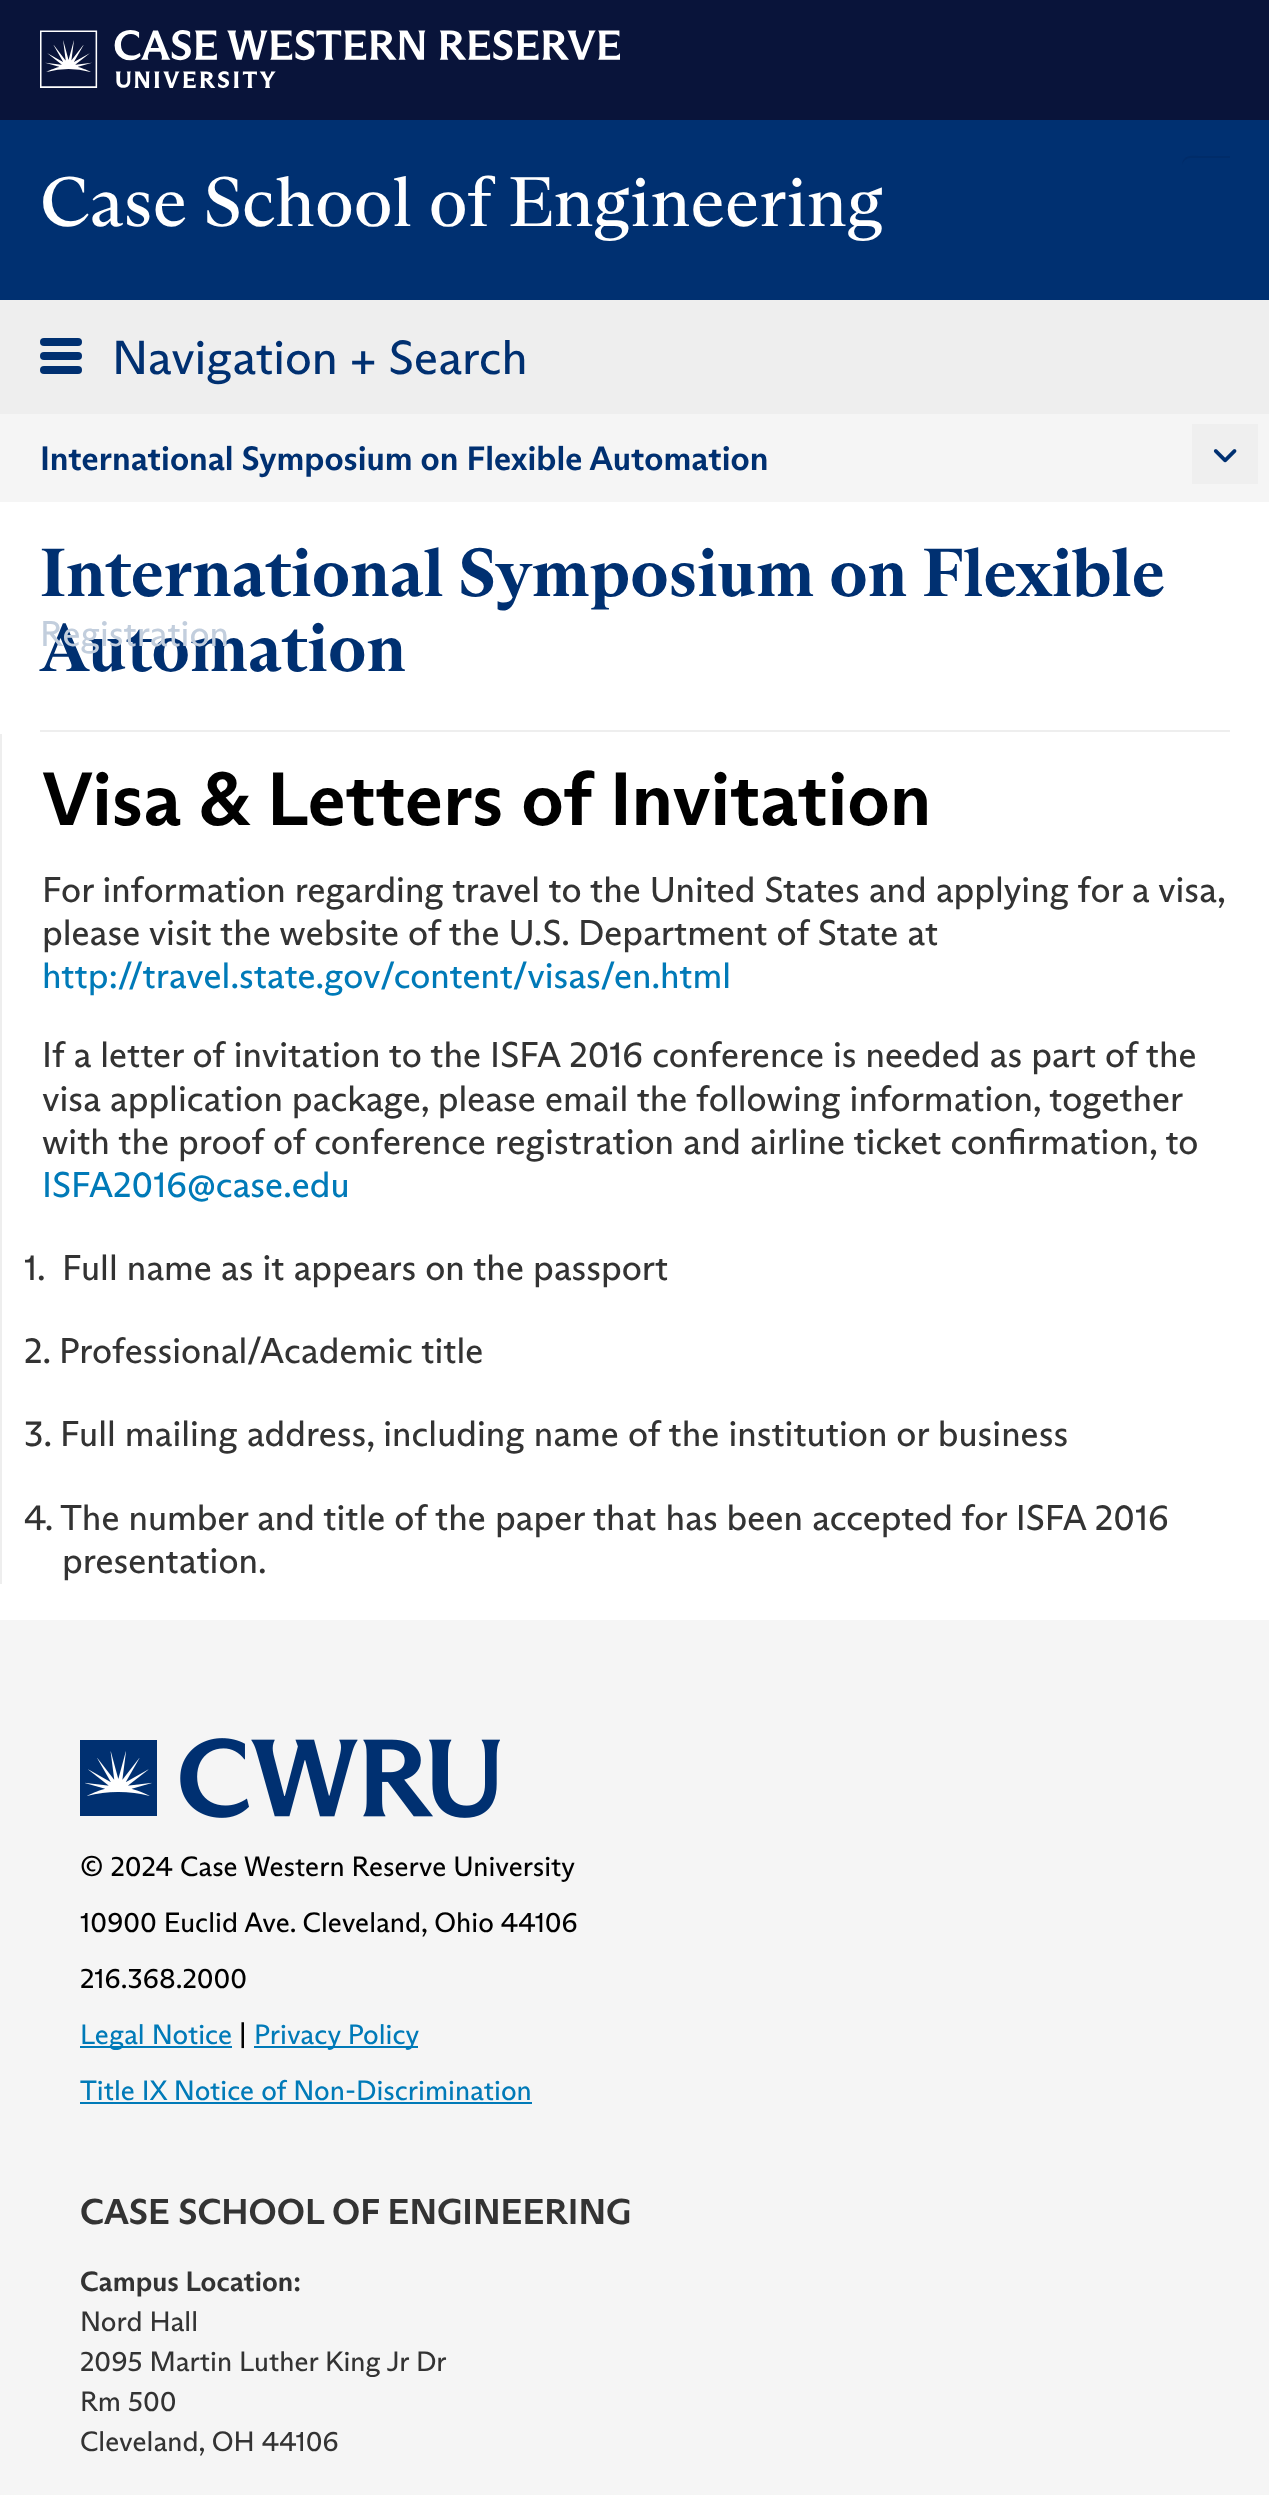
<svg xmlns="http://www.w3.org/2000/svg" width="1269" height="2495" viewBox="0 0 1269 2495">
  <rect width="100%" height="100%" fill="rgb(245,245,245)"/>
  <rect x="0" y="0" width="1269" height="120" fill="rgb(9,20,58)"/>
  <image x="40" y="30" width="580" height="58" href="pic1.png"/>
  <rect x="0" y="120" width="1269" height="180" fill="rgb(0,48,113)"/>
  <path d="M1190 158H1230V156H1203C1194 156 1182 153 1182 166C1182 162 1186 158 1190 158Z" fill="rgb(0,44,105)"/>
  <text x="40" y="226" font-family="'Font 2'" font-size="70" fill="rgb(255,255,255)">Case School of Engineering</text>
  <rect x="0" y="300" width="1269" height="114" fill="rgb(238,238,238)"/>
  <rect x="40" y="338" width="42" height="8" rx="4" fill="rgb(0,48,113)"/>
  <text x="112" y="374" font-family="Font" font-size="48" fill="rgb(0,48,113)">Navigation + Search</text>
  <rect x="40" y="352" width="42" height="8" rx="4" fill="rgb(0,48,113)"/>
  <rect x="40" y="366" width="42" height="8" rx="4" fill="rgb(0,48,113)"/>
  <text x="40" y="470" font-family="'Font 2'" font-size="34" font-weight="bold" fill="rgb(0,48,113)">International Symposium on Flexible Automation</text>
  <rect x="1192" y="424" width="66" height="60" fill="rgb(239,239,239)"/>
  <image x="1213" y="449" width="24" height="14" href="pic2.png"/>
  <rect x="0" y="502" width="1269" height="1118" fill="rgb(255,255,255)"/>
  <text x="40" y="671" font-family="Font" font-size="68" font-weight="bold" fill="rgb(0,48,113)">Automation</text>
  <text x="40" y="646" font-family="Font" font-size="36" fill="rgb(194,206,221)">Registration</text>
  <rect x="40" y="730" width="1190" height="2" fill="rgb(238,238,238)"/>
  <text x="40" y="596" font-family="Font" font-size="68" font-weight="bold" fill="rgb(0,48,113)">International Symposium on Flexible</text>
  <rect x="0" y="734" width="2" height="850" fill="rgb(238,238,238)"/>
  <text x="42" y="825" font-family="'Font 2'" font-size="75.6" font-weight="bold" fill="rgb(0,0,0)">Visa &amp; Letters of Invitation</text>
  <g font-family="Font" font-size="36" fill="rgb(51,51,51)">
    <text>
      <tspan x="42" y="902">For information regarding travel to the United States and applying for a visa,</tspan>
      <tspan x="42" y="945">please visit the website of the U.S. Department of State at</tspan>
    </text>
  </g>
  <text x="42" y="988" font-family="Font" font-size="36" fill="rgb(0,122,184)">http://travel.state.gov/content/visas/en.html</text>
  <g font-family="Font" font-size="36" fill="rgb(51,51,51)">
    <text>
      <tspan x="42" y="1067">If a letter of invitation to the ISFA 2016 conference is needed as part of the</tspan>
      <tspan x="42" y="1111">visa application package, please email the following information, together</tspan>
      <tspan x="42" y="1154">with the proof of conference registration and airline ticket confirmation, to</tspan>
    </text>
  </g>
  <text x="42" y="1197" font-family="Font" font-size="36" fill="rgb(0,122,184)">ISFA2016@case.edu</text>
  <g font-family="Font" font-size="36" fill="rgb(51,51,51)">
    <text x="24" y="1280">1.</text>
    <text x="62" y="1280">Full name as it appears on the passport</text>
    <text x="24" y="1363">2. Professional/Academic title</text>
    <text x="24" y="1446">3. Full mailing address, including name of the institution or business</text>
    <text x="24" y="1530">4. The number and title of the paper that has been accepted for ISFA 2016</text>
    <text x="62" y="1573">presentation.</text>
  </g>
  <image x="80" y="1738" width="420" height="80" href="pic3.png"/>
  <g font-family="Font" font-size="28" fill="rgb(0,0,0)">
    <text x="80" y="1876">© 2024 Case Western Reserve University</text>
    <text x="80" y="1932">10900 Euclid Ave. Cleveland, Ohio 44106</text>
    <text x="80" y="1988">216.368.2000</text>
  </g>
  <rect x="80" y="2046" width="152" height="2" fill="rgb(0,122,184)"/>
  <text x="80" y="2044" font-family="Font" font-size="28" fill="rgb(0,122,184)">Legal Notice</text>
  <text x="239" y="2044" font-family="Font" font-size="28" fill="rgb(0,0,0)">|</text>
  <rect x="254" y="2046" width="164" height="2" fill="rgb(0,122,184)"/>
  <g font-family="Font" font-size="28" fill="rgb(0,122,184)">
    <text x="254" y="2044">Privacy Policy</text>
    <text x="80" y="2100">Title IX Notice of Non-Discrimination</text>
  </g>
  <rect x="80" y="2102" width="452" height="2" fill="rgb(0,122,184)"/>
  <text x="80" y="2224" font-family="'Font 2'" font-size="36" font-weight="bold" fill="rgb(51,51,51)">CASE SCHOOL OF ENGINEERING</text>
  <text x="80" y="2291" font-family="'Font 2'" font-size="28" font-weight="bold" fill="rgb(51,51,51)">Campus Location:</text>
  <g font-family="Font" font-size="28" fill="rgb(51,51,51)">
    <text>
      <tspan x="80" y="2331">Nord Hall</tspan>
      <tspan x="80" y="2371">2095 Martin Luther King Jr Dr</tspan>
      <tspan x="80" y="2411">Rm 500</tspan>
      <tspan x="80" y="2451">Cleveland, OH 44106</tspan>
    </text>
  </g>
</svg>
